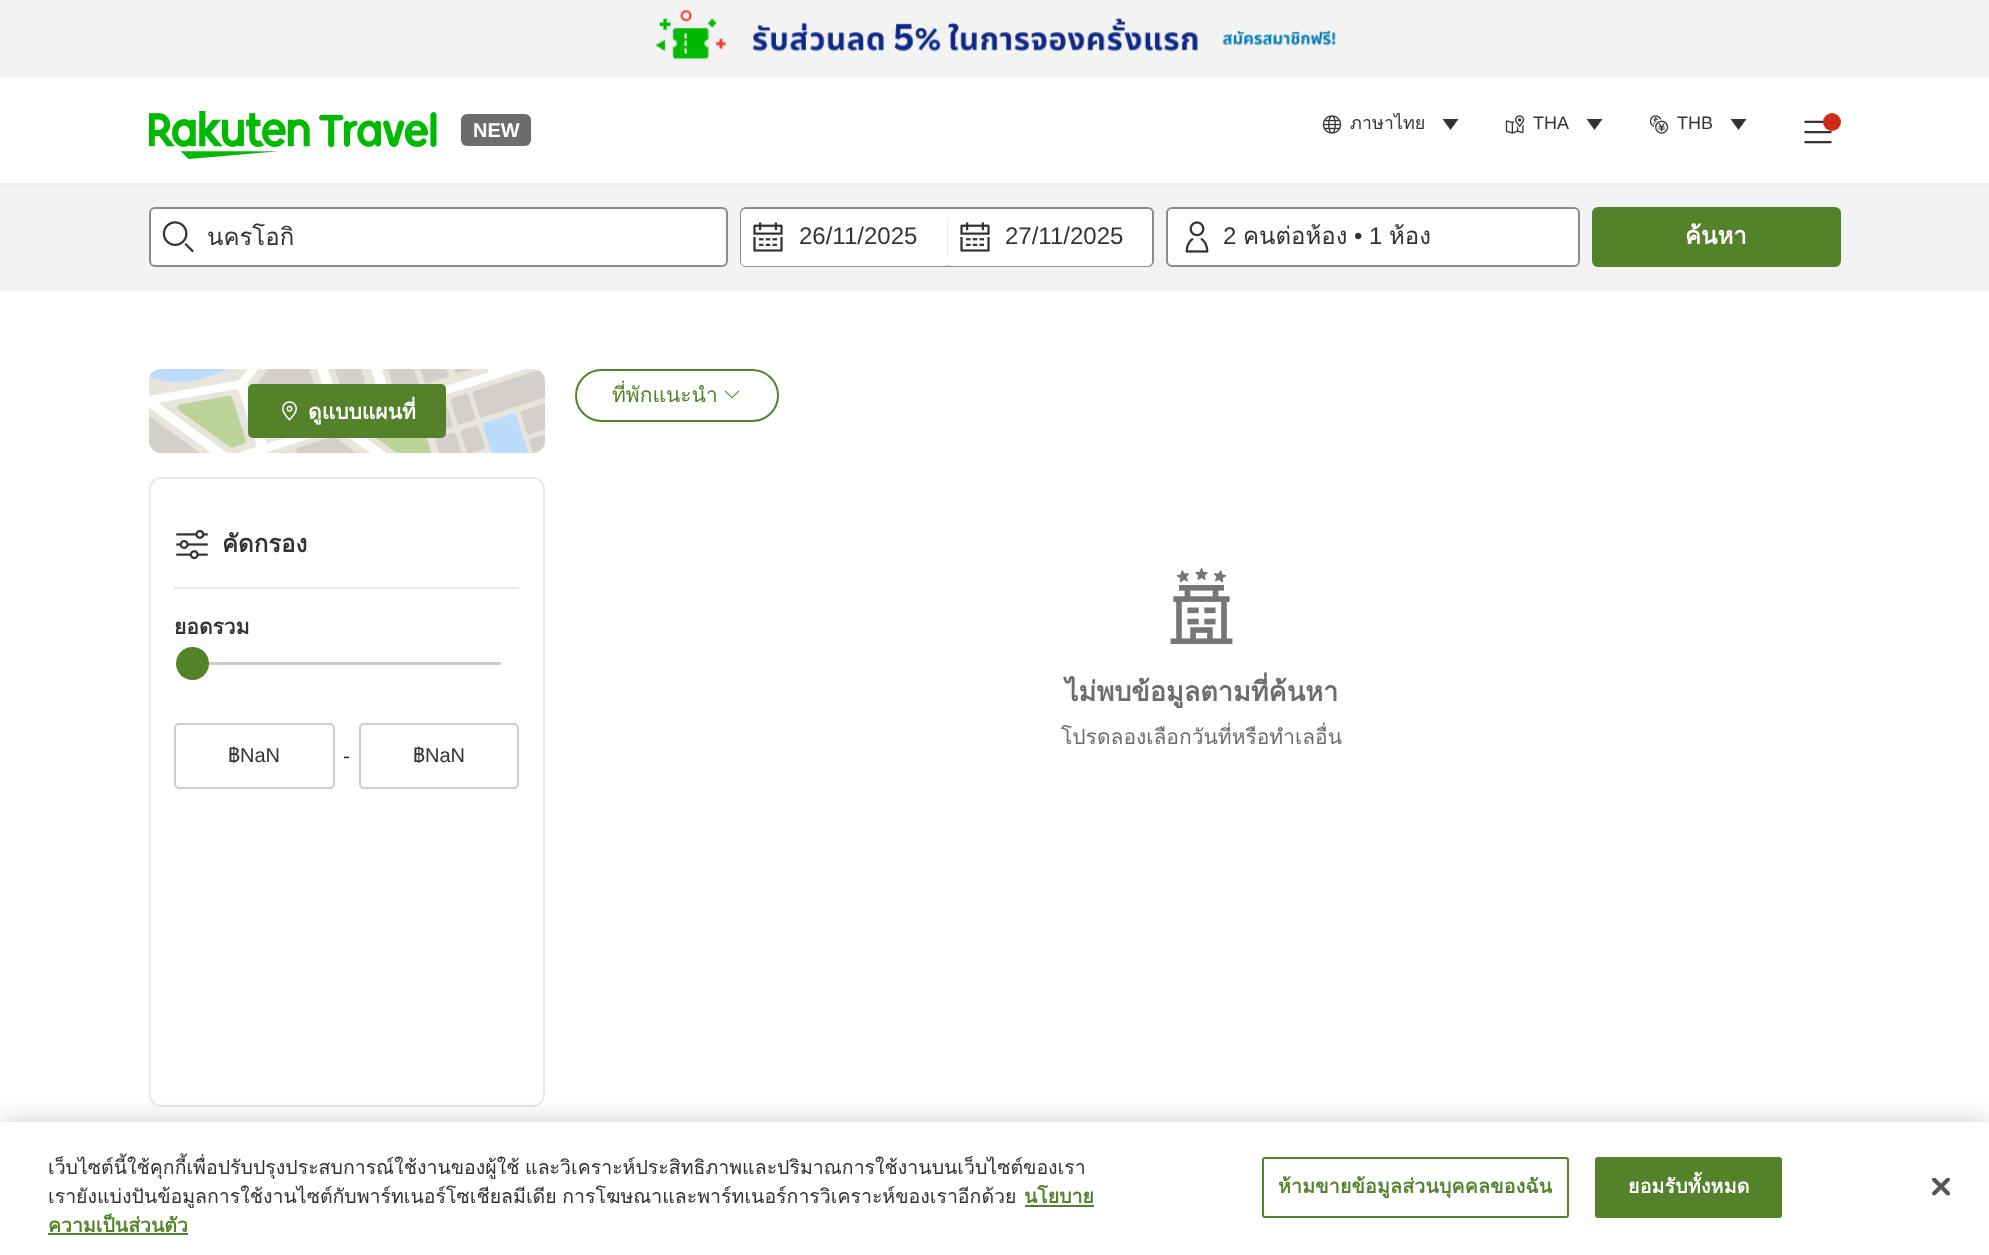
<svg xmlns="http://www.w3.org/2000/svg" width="1989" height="1255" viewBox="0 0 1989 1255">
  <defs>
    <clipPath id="clip1"><rect x="48" y="1152" width="1046" height="89"/></clipPath>
  </defs>
  <rect width="100%" height="100%" fill="rgb(255,255,255)"/>
  <image x="0" y="0" width="1989" height="78" href="pic1.png"/>
  <rect x="0" y="183" width="1989" height="2" fill="rgb(234,234,234)"/>
  <image x="149" y="111" width="288" height="48" href="pic2.png"/>
  <rect x="461" y="114" width="70" height="32" rx="6" fill="rgb(109,109,109)"/>
  <text x="473" y="137" font-family="Liberation Sans" font-size="20" font-weight="bold" fill="rgb(255,255,255)">NEW</text>
  <image x="1322" y="115" width="20" height="19" href="pic3.png"/>
  <text x="1350" y="129" font-family="Loma" font-size="18" fill="rgb(51,51,51)">ภาษาไทย</text>
  <path d="M1450.5 130L1442.5 119H1458.5Z" fill="rgb(51,51,51)" fill-rule="evenodd"/>
  <image x="1505" y="115" width="20" height="19" href="pic4.png"/>
  <text x="1533" y="129" font-family="Liberation Sans" font-size="18" fill="rgb(51,51,51)">THA</text>
  <path d="M1594.5 130L1586.5 119H1602.5Z" fill="rgb(51,51,51)" fill-rule="evenodd"/>
  <image x="1649" y="115" width="20" height="19" href="pic5.png"/>
  <text x="1677" y="129" font-family="Liberation Sans" font-size="18" fill="rgb(51,51,51)">THB</text>
  <path d="M1738.5 130L1730.5 119H1746.5Z" fill="rgb(51,51,51)" fill-rule="evenodd"/>
  <image x="1804" y="120" width="28" height="24" href="pic6.png"/>
  <circle cx="1832" cy="122" r="9" fill="rgb(206,43,24)"/>
  <rect x="0" y="185" width="1989" height="106" fill="rgb(243,243,243)"/>
  <rect x="150" y="208" width="577" height="58" rx="5" fill="rgb(255,255,255)" stroke="rgb(140,140,140)" stroke-width="2"/>
  <image x="162" y="221" width="32" height="32" href="pic7.png"/>
  <text x="207" y="245" font-family="Loma" font-size="24" fill="rgb(51,51,51)">นครโอกิ</text>
  <rect x="741" y="208" width="412" height="58" rx="5" fill="rgb(255,255,255)" stroke="rgb(140,140,140)" stroke-width="2"/>
  <path d="M746 209H947V266H746C743 266 741 264 741 261V214C741 211 743 209 746 209Z" fill="rgb(255,255,255)"/>
  <image x="753" y="222" width="30" height="30" href="pic8.png"/>
  <text x="799" y="244" font-family="Liberation Sans" font-size="24" fill="rgb(51,51,51)">26/11/2025</text>
  <rect x="947" y="218" width="1" height="39" fill="rgb(234,234,234)"/>
  <path d="M948 209H1147C1150 209 1152 211 1152 214V261C1152 264 1150 266 1147 266H948Z" fill="rgb(255,255,255)"/>
  <image x="960" y="222" width="30" height="30" href="pic8.png"/>
  <text x="1005" y="244" font-family="Liberation Sans" font-size="24" fill="rgb(51,51,51)">27/11/2025</text>
  <rect x="1167" y="208" width="412" height="58" rx="5" fill="rgb(255,255,255)" stroke="rgb(140,140,140)" stroke-width="2"/>
  <image x="1185" y="221" width="24" height="32" href="pic9.png"/>
  <text x="1223" y="244" font-family="Liberation Sans" font-size="24" fill="rgb(51,51,51)">2</text>
  <text x="1243" y="244" font-family="Loma" font-size="24" fill="rgb(51,51,51)">คนต่อห้อง</text>
  <text x="1354" y="244" font-family="Liberation Sans" font-size="24" fill="rgb(51,51,51)">• 1</text>
  <text x="1389" y="244" font-family="Loma" font-size="24" fill="rgb(51,51,51)">ห้อง</text>
  <rect x="1592" y="207" width="249" height="60" rx="6" fill="rgb(84,130,43)"/>
  <text x="1685" y="244" font-family="Loma" font-size="24" font-weight="bold" fill="rgb(255,255,255)">ค้นหา</text>
  <image x="149" y="369" width="396" height="84" href="pic10.png"/>
  <rect x="248" y="384" width="198" height="54" rx="5" fill="rgb(84,130,43)"/>
  <image x="282" y="401" width="15" height="20" href="pic11.png"/>
  <text x="308" y="419" font-family="Loma" font-size="21" font-weight="bold" fill="rgb(255,255,255)">ดูแบบแผนที่</text>
  <rect x="150" y="478" width="394" height="628" rx="11" fill="none" stroke="rgb(234,234,234)" stroke-width="2"/>
  <rect x="174" y="587" width="345" height="2" fill="rgb(234,234,234)"/>
  <image x="176" y="529" width="32" height="31" href="pic12.png"/>
  <text x="222" y="552" font-family="Loma" font-size="24" font-weight="bold" fill="rgb(51,51,51)">คัดกรอง</text>
  <text x="174" y="634" font-family="Loma" font-size="21" font-weight="bold" fill="rgb(51,51,51)">ยอดรวม</text>
  <rect x="192" y="662" width="309" height="3" rx="1.5" fill="rgb(204,204,204)"/>
  <circle cx="192.5" cy="663.5" r="16.5" fill="rgb(84,130,43)"/>
  <rect x="175" y="724" width="159" height="64" rx="4" fill="none" stroke="rgb(204,204,204)" stroke-width="2"/>
  <text x="228" y="762" font-family="Loma" font-size="20" fill="rgb(51,51,51)">฿</text>
  <text x="240" y="762" font-family="Liberation Sans" font-size="20" fill="rgb(51,51,51)">NaN</text>
  <text x="343" y="763" font-family="Liberation Sans" font-size="21" fill="rgb(51,51,51)">-</text>
  <rect x="360" y="724" width="158" height="64" rx="4" fill="none" stroke="rgb(204,204,204)" stroke-width="2"/>
  <text x="413" y="762" font-family="Loma" font-size="20" fill="rgb(51,51,51)">฿</text>
  <text x="425" y="762" font-family="Liberation Sans" font-size="20" fill="rgb(51,51,51)">NaN</text>
  <rect x="576" y="370" width="202" height="51" rx="25.5" fill="none" stroke="rgb(84,130,43)" stroke-width="2"/>
  <text x="612" y="402" font-family="Loma" font-size="21" fill="rgb(84,130,43)">ที่พักแนะนำ</text>
  <image x="724" y="390" width="16" height="9" href="pic13.png"/>
  <image x="1170" y="568" width="63" height="77" href="pic14.png"/>
  <text x="1065" y="701" font-family="Loma" font-size="27" font-weight="bold" fill="rgb(109,109,109)">ไม่พบข้อมูลตามที่ค้นหา</text>
  <text x="1061" y="744" font-family="Loma" font-size="21" fill="rgb(109,109,109)">โปรดลองเลือกวันที่หรือทำเลอื่น</text>
  <rect x="0" y="1122" width="1989" height="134" fill="rgba(0,0,0,0.2)" filter="blur(13.5px)"/>
  <rect x="0" y="1122" width="1989" height="133" fill="rgb(255,255,255)"/>
  <g clip-path="url(#clip1)">
    <text x="48" y="1174" word-spacing="-1" font-family="Loma" font-size="19.5" fill="rgb(51,51,51)">เว็บไซต์นี้ใช้คุกกี้เพื่อปรับปรุงประสบการณ์ใช้งานของผู้ใช้ และวิเคราะห์ประสิทธิภาพและปริมาณการใช้งานบนเว็บไซต์ของเรา</text>
  </g>
  <text x="48" y="1203" word-spacing="-1" font-family="Loma" font-size="19.5" fill="rgb(51,51,51)">เรายังแบ่งปันข้อมูลการใช้งานไซต์กับพาร์ทเนอร์โซเชียลมีเดีย การโฆษณาและพาร์ทเนอร์การวิเคราะห์ของเราอีกด้วย</text>
  <text x="1024" y="1203" font-family="Loma" font-size="19.5" font-weight="bold" fill="rgb(84,130,43)">นโยบาย</text>
  <rect x="1025" y="1205" width="69" height="2" fill="rgb(84,130,43)"/>
  <text x="48" y="1232" font-family="Loma" font-size="19.5" font-weight="bold" fill="rgb(84,130,43)">ความเป็นส่วนตัว</text>
  <rect x="48" y="1233" width="140" height="2" fill="rgb(84,130,43)"/>
  <rect x="1263" y="1158" width="305" height="59" rx="2" fill="none" stroke="rgb(84,130,43)" stroke-width="2"/>
  <text x="1278" y="1193" font-family="Loma" font-size="19.5" font-weight="bold" letter-spacing="0.2" fill="rgb(84,130,43)">ห้ามขายข้อมูลส่วนบุคคลของฉัน</text>
  <rect x="1596" y="1158" width="185" height="59" rx="2" fill="rgb(84,130,43)" stroke="rgb(84,130,43)" stroke-width="2"/>
  <text x="1628" y="1193" font-family="Loma" font-size="19.5" font-weight="bold" letter-spacing="0.2" fill="rgb(255,255,255)">ยอมรับทั้งหมด</text>
  <image x="1932" y="1178" width="18" height="18" href="pic15.png"/>
</svg>
